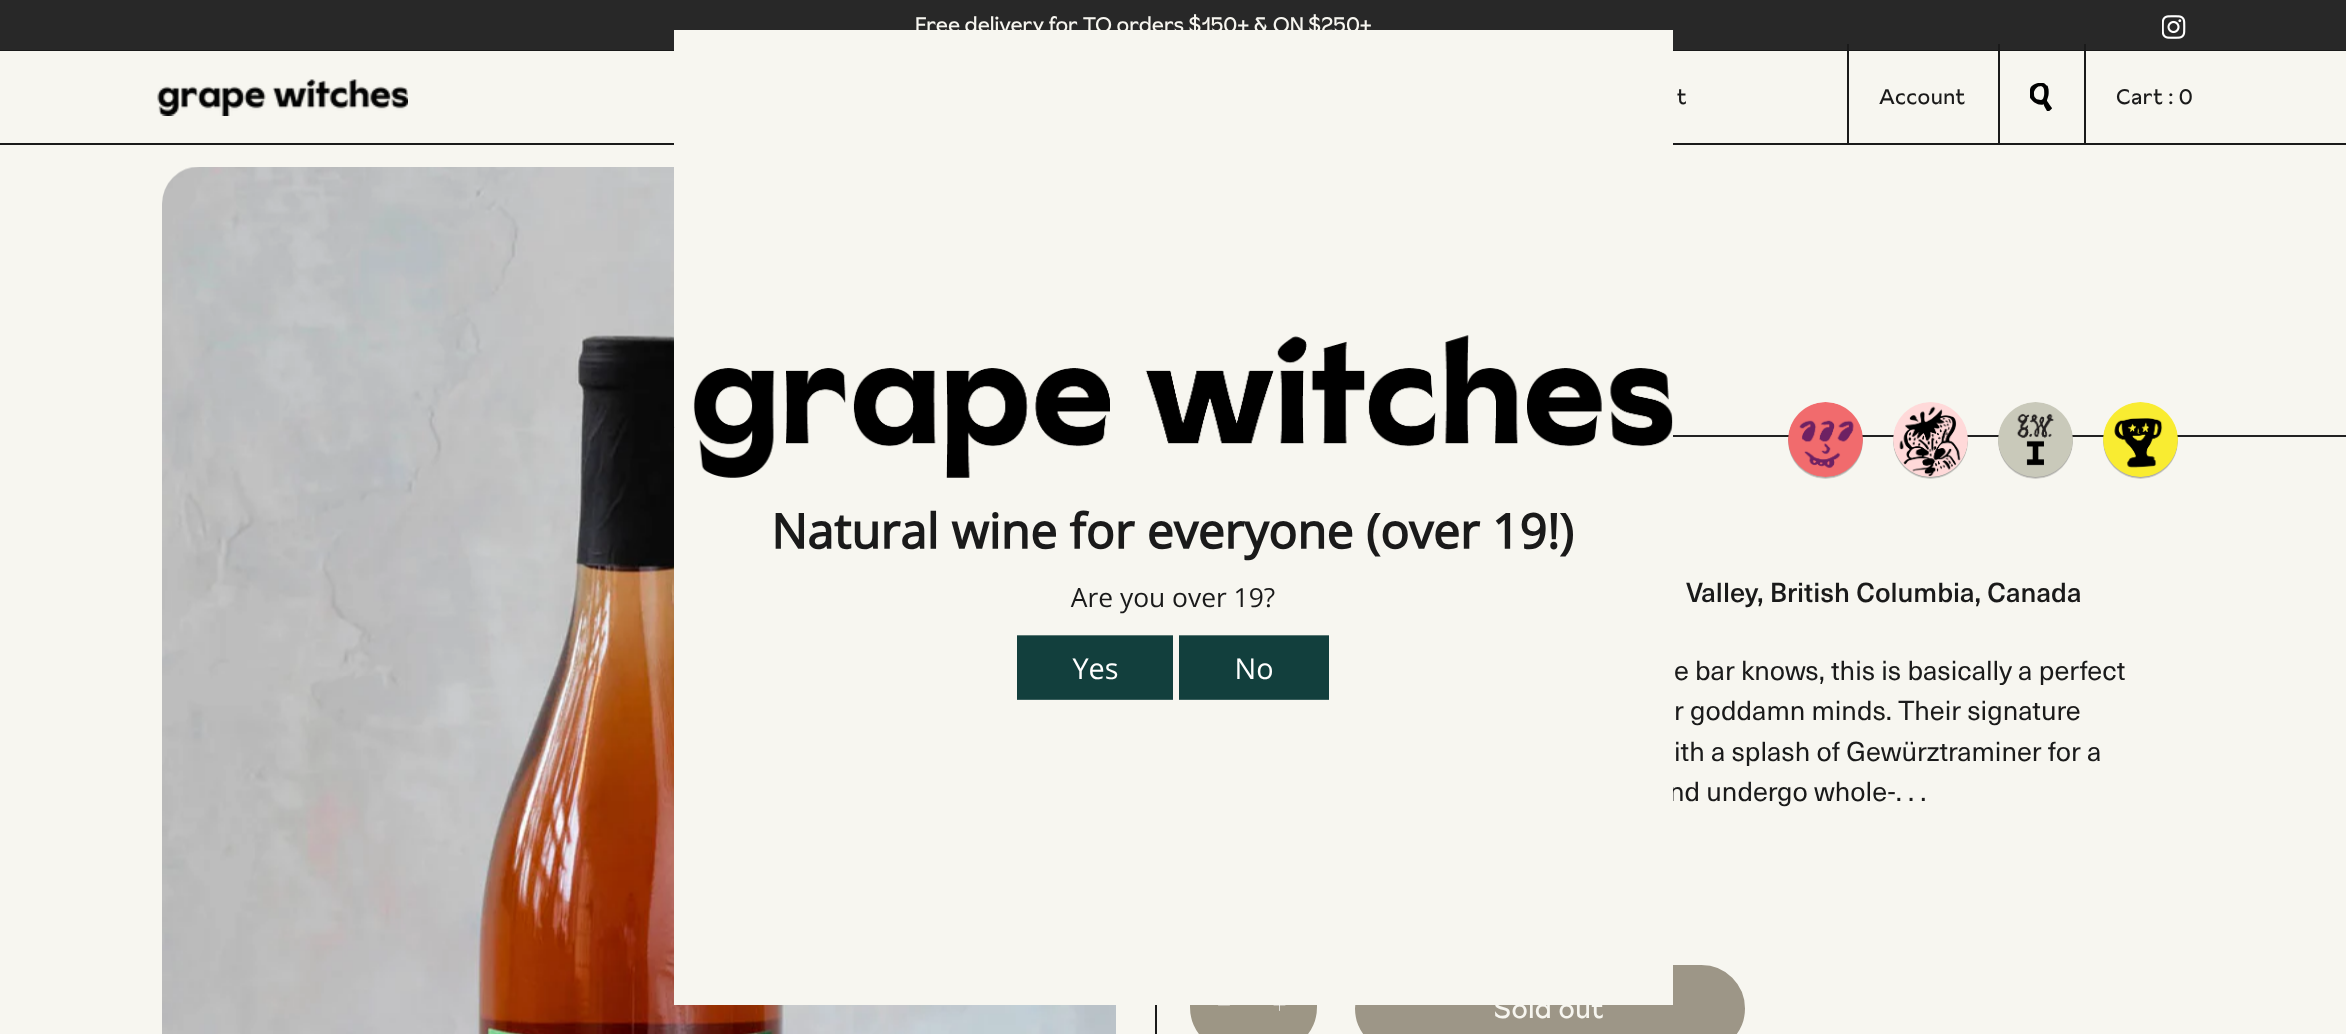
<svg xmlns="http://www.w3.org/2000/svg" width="2346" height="1034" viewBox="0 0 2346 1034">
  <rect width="100%" height="100%" fill="rgb(247,246,240)"/>
  <rect x="0" y="0" width="2346" height="50" fill="rgb(40,40,40)"/>
  <text x="915" y="32" font-family="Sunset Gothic" font-size="21" fill="rgb(247,246,240)">Free delivery for TO orders $150+ &amp; ON $250+</text>
  <image x="2162" y="15" width="24" height="24" href="pic1.png"/>
  <rect x="0" y="50" width="2346" height="1" fill="rgb(26,26,26)"/>
  <rect x="0" y="143" width="2346" height="2" fill="rgb(26,26,26)"/>
  <image x="157" y="79" width="251" height="37" href="pic2.png"/>
  <text x="1677" y="104" font-family="Sunset Gothic" font-size="21" letter-spacing="0.5" fill="rgb(26,26,26)">t</text>
  <rect x="1847" y="44" width="2" height="100" fill="rgb(26,26,26)"/>
  <text x="1879" y="104" font-family="Sunset Gothic" font-size="21" letter-spacing="0.5" fill="rgb(26,26,26)">Account</text>
  <rect x="1998" y="44" width="2" height="100" fill="rgb(26,26,26)"/>
  <image x="2030" y="83" width="22" height="28" href="pic3.png"/>
  <rect x="2084" y="44" width="2" height="100" fill="rgb(26,26,26)"/>
  <text x="2116" y="104" font-family="Sunset Gothic" font-size="21" letter-spacing="0.5" fill="rgb(26,26,26)">Cart : 0</text>
  <rect x="1155" y="1005" width="2" height="29" fill="rgb(26,26,26)"/>
  <image x="162" y="167" width="954" height="867" href="pic4.png"/>
  <rect x="1673" y="435" width="673" height="2" fill="rgb(34,34,34)"/>
  <image x="1788" y="402" width="75" height="77" href="pic5.png"/>
  <image x="1893" y="402" width="75" height="77" href="pic6.png"/>
  <image x="1998" y="402" width="75" height="77" href="pic7.png"/>
  <image x="2103" y="402" width="75" height="77" href="pic8.png"/>
  <text x="1686" y="602" font-family="'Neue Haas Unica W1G'" font-size="27" font-weight="500" fill="rgb(26,26,26)">Valley, British Columbia, Canada</text>
  <g font-family="'Neue Haas Unica W1G'" font-size="27" fill="rgb(26,26,26)">
    <text>
      <tspan x="1674" y="680">e bar knows, this is basically a perfect</tspan>
      <tspan x="1674" y="720">r goddamn minds. Their signature</tspan>
      <tspan x="1674" y="761">ith a splash of Gewürztraminer for a</tspan>
    </text>
    <text x="1669" y="801">nd undergo whole-. . .</text>
  </g>
  <rect x="1191" y="960" width="125" height="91" rx="44" fill="rgb(157,150,133)" stroke="rgb(157,150,133)" stroke-width="2"/>
  <path d="M1229.5 1005H1218.5" fill="none" stroke="rgb(255,255,255)" stroke-width="0.7" stroke-linecap="round" stroke-linejoin="round"/>
  <path d="M1279.5 999.5V1010.5M1285 1005H1274" fill="none" stroke="rgb(255,255,255)" stroke-width="0.7" stroke-linecap="round" stroke-linejoin="round"/>
  <rect x="1356" y="966" width="388" height="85" rx="42.5" fill="rgb(157,150,135)" stroke="rgb(157,150,135)" stroke-width="2"/>
  <text x="1494" y="1018" font-family="Sunset Gothic" font-size="27" letter-spacing="0.5" fill="rgb(247,246,240)">Sold out</text>
  <image x="674" y="30" width="999" height="975" href="pic9.png"/>
</svg>
